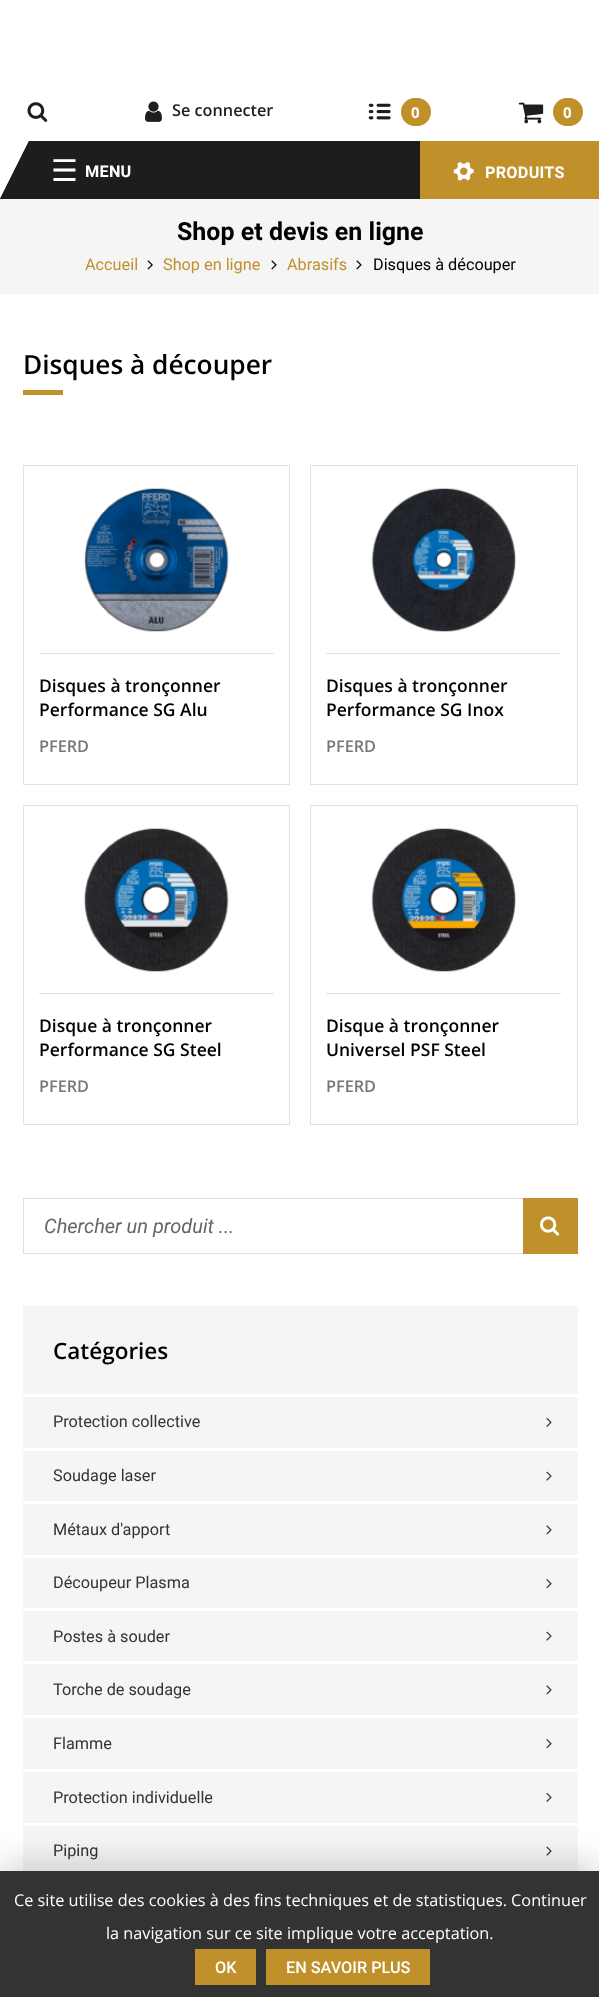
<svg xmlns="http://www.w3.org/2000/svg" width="599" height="1997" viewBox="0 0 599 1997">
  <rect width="100%" height="100%" fill="rgb(255,255,255)"/>
  <image x="27" y="102" width="21" height="20" href="pic1.png"/>
  <image x="145" y="101" width="17" height="21" href="pic2.png"/>
  <text x="172" y="116" font-family="Open Sans" font-size="16.25" font-weight="600" fill="rgb(30,30,30)">Se connecter</text>
  <image x="368" y="103" width="23" height="17" href="pic3.png"/>
  <rect x="401" y="98" width="30" height="28" rx="14" fill="rgb(192,144,42)"/>
  <text x="411" y="118" font-family="Open Sans" font-size="15" font-weight="bold" fill="rgb(255,255,255)">0</text>
  <image x="518" y="102" width="26" height="22" href="pic4.png"/>
  <rect x="553" y="98" width="30" height="28" rx="14" fill="rgb(192,144,42)"/>
  <text x="563" y="118" font-family="Open Sans" font-size="15" font-weight="bold" fill="rgb(255,255,255)">0</text>
  <rect x="0" y="141" width="420" height="58" fill="rgb(29,29,29)"/>
  <path d="M0 141H29L0 199Z" fill="rgb(255,255,255)"/>
  <path d="M29 141V199H0Z" fill="rgb(29,29,29)"/>
  <text x="51" y="181" font-family="DejaVu Sans" font-size="30" letter-spacing="0.25" fill="rgb(255,255,255)">☰</text>
  <text x="85" y="177" font-family="Roboto" font-size="16.25" font-weight="bold" letter-spacing="0.25" fill="rgb(255,255,255)">MENU</text>
  <rect x="420" y="141" width="179" height="58" fill="rgb(192,144,42)"/>
  <image x="453" y="161" width="21" height="20" href="pic5.png"/>
  <text x="485" y="178" font-family="Roboto" font-size="16.25" font-weight="bold" letter-spacing="0.25" fill="rgb(255,255,255)">PRODUITS</text>
  <rect x="0" y="199" width="599" height="95" fill="rgb(245,245,245)"/>
  <text x="177" y="240" font-family="Roboto" font-size="25" font-weight="bold" fill="rgb(1,1,1)">Shop et devis en ligne</text>
  <text x="85" y="270" font-family="Roboto" font-size="16.25" fill="rgb(192,144,42)">Accueil</text>
  <image x="147" y="260" width="6" height="10" href="pic6.png"/>
  <text x="163" y="270" font-family="Roboto" font-size="16.25" fill="rgb(192,144,42)">Shop en ligne</text>
  <image x="271" y="260" width="6" height="10" href="pic7.png"/>
  <text x="287" y="270" font-family="Roboto" font-size="16.25" fill="rgb(192,144,42)">Abrasifs</text>
  <image x="356" y="260" width="6" height="10" href="pic7.png"/>
  <text x="373" y="270" font-family="Roboto" font-size="16.25" fill="rgb(1,1,1)">Disques à découper</text>
  <text x="23" y="374" font-family="Open Sans" font-size="26.25" font-weight="600" fill="rgb(1,1,1)">Disques à découper</text>
  <rect x="23" y="390" width="40" height="5" fill="rgb(192,144,42)"/>
  <rect x="23.5" y="465.5" width="266" height="319" fill="none" stroke="rgb(225,225,225)"/>
  <rect x="39" y="653" width="235" height="1" fill="rgb(225,225,225)"/>
  <image x="84" y="488" width="145" height="144" href="pic8.png"/>
  <g font-family="Open Sans" font-size="17.5" font-weight="600" fill="rgb(1,1,1)">
    <text>
      <tspan x="39" y="692">Disques à tronçonner</tspan>
      <tspan x="39" y="716">Performance SG Alu</tspan>
    </text>
  </g>
  <text x="39" y="752" font-family="Open Sans" font-size="16.25" font-weight="600" fill="rgb(118,118,118)">PFERD</text>
  <rect x="310.5" y="465.5" width="267" height="319" fill="none" stroke="rgb(225,225,225)"/>
  <rect x="326" y="653" width="235" height="1" fill="rgb(225,225,225)"/>
  <image x="371" y="488" width="145" height="144" href="pic9.png"/>
  <g font-family="Open Sans" font-size="17.5" font-weight="600" fill="rgb(1,1,1)">
    <text>
      <tspan x="326" y="692">Disques à tronçonner</tspan>
      <tspan x="326" y="716">Performance SG Inox</tspan>
    </text>
  </g>
  <text x="326" y="752" font-family="Open Sans" font-size="16.25" font-weight="600" fill="rgb(118,118,118)">PFERD</text>
  <rect x="23.5" y="805.5" width="266" height="319" fill="none" stroke="rgb(225,225,225)"/>
  <rect x="39" y="993" width="235" height="1" fill="rgb(225,225,225)"/>
  <image x="84" y="828" width="145" height="144" href="pic10.png"/>
  <g font-family="Open Sans" font-size="17.5" font-weight="600" fill="rgb(1,1,1)">
    <text>
      <tspan x="39" y="1032">Disque à tronçonner</tspan>
      <tspan x="39" y="1056">Performance SG Steel</tspan>
    </text>
  </g>
  <text x="39" y="1092" font-family="Open Sans" font-size="16.25" font-weight="600" fill="rgb(118,118,118)">PFERD</text>
  <rect x="310.5" y="805.5" width="267" height="319" fill="none" stroke="rgb(225,225,225)"/>
  <rect x="326" y="993" width="235" height="1" fill="rgb(225,225,225)"/>
  <image x="371" y="828" width="145" height="144" href="pic11.png"/>
  <g font-family="Open Sans" font-size="17.5" font-weight="600" fill="rgb(1,1,1)">
    <text>
      <tspan x="326" y="1032">Disque à tronçonner</tspan>
      <tspan x="326" y="1056">Universel PSF Steel</tspan>
    </text>
  </g>
  <text x="326" y="1092" font-family="Open Sans" font-size="16.25" font-weight="600" fill="rgb(118,118,118)">PFERD</text>
  <rect x="23" y="1198" width="500" height="1" fill="rgb(225,225,225)"/>
  <rect x="23" y="1253" width="500" height="1" fill="rgb(225,225,225)"/>
  <rect x="23" y="1198" width="1" height="56" fill="rgb(225,225,225)"/>
  <text x="44" y="1233" font-family="Roboto" font-size="20" font-style="italic" fill="rgb(102,102,102)">Chercher un produit ...</text>
  <rect x="523" y="1198" width="55" height="56" fill="rgb(192,144,42)"/>
  <image x="540" y="1216" width="20" height="20" href="pic12.png"/>
  <rect x="23" y="1306" width="555" height="565" fill="rgb(245,245,245)"/>
  <text x="53" y="1359" font-family="Open Sans" font-size="22.5" font-weight="600" fill="rgb(1,1,1)">Catégories</text>
  <rect x="23" y="1394" width="555" height="3" fill="rgb(255,255,255)"/>
  <text x="53" y="1427" font-family="Roboto" font-size="16.25" fill="rgb(51,51,51)">Protection collective</text>
  <image x="546" y="1417" width="6" height="10" href="pic13.png"/>
  <rect x="23" y="1448" width="555" height="3" fill="rgb(255,255,255)"/>
  <text x="53" y="1481" font-family="Roboto" font-size="16.25" fill="rgb(51,51,51)">Soudage laser</text>
  <image x="546" y="1471" width="6" height="10" href="pic14.png"/>
  <rect x="23" y="1501" width="555" height="3" fill="rgb(255,255,255)"/>
  <text x="53" y="1535" font-family="Roboto" font-size="16.25" fill="rgb(51,51,51)">Métaux d'apport</text>
  <image x="546" y="1525" width="6" height="10" href="pic15.png"/>
  <rect x="23" y="1555" width="555" height="3" fill="rgb(255,255,255)"/>
  <text x="53" y="1588" font-family="Roboto" font-size="16.25" fill="rgb(51,51,51)">Découpeur Plasma</text>
  <image x="546" y="1579" width="6" height="10" href="pic16.png"/>
  <rect x="23" y="1608" width="555" height="3" fill="rgb(255,255,255)"/>
  <text x="53" y="1642" font-family="Roboto" font-size="16.25" fill="rgb(51,51,51)">Postes à souder</text>
  <image x="546" y="1631" width="6" height="10" href="pic14.png"/>
  <rect x="23" y="1661" width="555" height="3" fill="rgb(255,255,255)"/>
  <text x="53" y="1695" font-family="Roboto" font-size="16.25" fill="rgb(51,51,51)">Torche de soudage</text>
  <image x="546" y="1685" width="6" height="10" href="pic15.png"/>
  <rect x="23" y="1715" width="555" height="3" fill="rgb(255,255,255)"/>
  <text x="53" y="1749" font-family="Roboto" font-size="16.25" fill="rgb(51,51,51)">Flamme</text>
  <image x="546" y="1739" width="6" height="10" href="pic16.png"/>
  <rect x="23" y="1769" width="555" height="3" fill="rgb(255,255,255)"/>
  <text x="53" y="1803" font-family="Roboto" font-size="16.25" fill="rgb(51,51,51)">Protection individuelle</text>
  <image x="546" y="1792" width="6" height="10" href="pic13.png"/>
  <rect x="23" y="1823" width="555" height="3" fill="rgb(255,255,255)"/>
  <text x="53" y="1856" font-family="Roboto" font-size="16.25" fill="rgb(51,51,51)">Piping</text>
  <image x="546" y="1846" width="6" height="10" href="pic14.png"/>
  <rect x="0" y="1861" width="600" height="127" fill="rgba(0,0,0,0.15)" filter="blur(15px)"/>
  <rect x="0" y="1871" width="599" height="126" fill="rgb(51,51,51)"/>
  <g font-family="Open Sans" font-size="16.25" fill="rgb(255,255,255)">
    <text x="14" y="1906">Ce site utilise des cookies à des fins techniques et de statistiques. Continuer</text>
    <text x="106" y="1939">la navigation sur ce site implique votre acceptation.</text>
  </g>
  <rect x="195" y="1949" width="61" height="36" fill="rgb(192,144,42)"/>
  <text x="215" y="1973" font-family="Roboto" font-size="16.25" font-weight="500" fill="rgb(255,255,255)">OK</text>
  <rect x="266" y="1949" width="164" height="36" fill="rgb(192,144,42)"/>
  <text x="286" y="1973" font-family="Roboto" font-size="16.25" font-weight="500" fill="rgb(255,255,255)">EN SAVOIR PLUS</text>
</svg>
